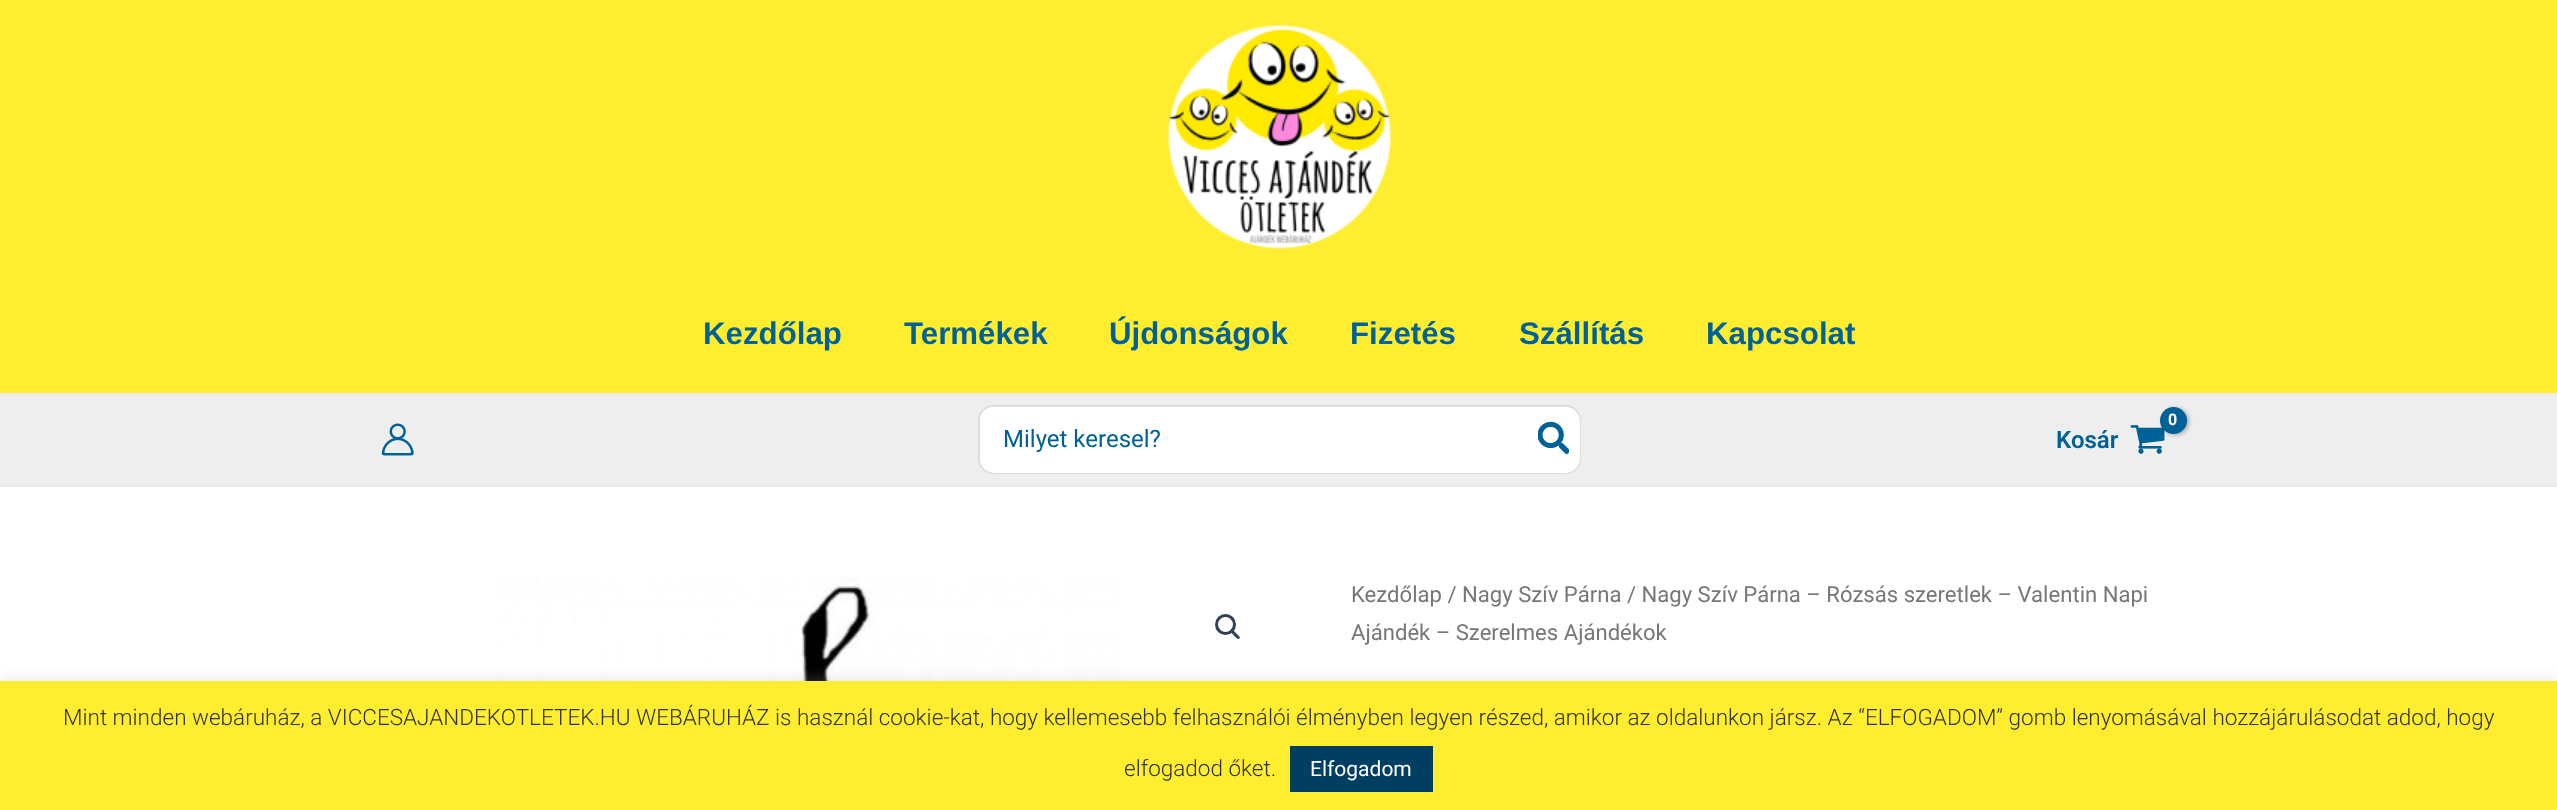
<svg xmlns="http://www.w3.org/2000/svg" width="2557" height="810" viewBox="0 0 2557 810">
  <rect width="100%" height="100%" fill="rgb(255,255,255)"/>
  <rect x="0" y="0" width="2557" height="393" fill="rgb(255,237,47)"/>
  <image x="1168" y="25" width="223" height="224" href="pic1.png"/>
  <rect x="0" y="393" width="2557" height="2" fill="rgb(234,234,234)"/>
  <g font-family="Liberation Sans" font-size="31.25" font-weight="bold" fill="rgb(0,97,150)">
    <text x="703" y="344">Kezdőlap</text>
    <text x="904" y="344">Termékek</text>
    <text x="1109" y="344">Újdonságok</text>
    <text x="1350" y="344">Fizetés</text>
    <text x="1519" y="344">Szállítás</text>
    <text x="1706" y="344">Kapcsolat</text>
  </g>
  <rect x="0" y="395" width="2557" height="90" fill="rgb(238,238,238)"/>
  <rect x="0" y="485" width="2557" height="2" fill="rgb(234,234,234)"/>
  <image x="381" y="423" width="33" height="33" href="pic2.png"/>
  <rect x="979" y="406" width="601" height="67" rx="14" fill="rgb(255,255,255)" stroke="rgb(221,221,221)" stroke-width="2"/>
  <rect x="980" y="407" width="600" height="66" rx="15" fill="rgb(255,255,255)"/>
  <text x="1003" y="447" font-family="Roboto" font-size="24" fill="rgb(0,97,150)">Milyet keresel?</text>
  <image x="1538" y="421" width="31" height="34" href="pic3.png"/>
  <image x="2130" y="425" width="35" height="29" href="pic4.png"/>
  <rect x="2162" y="408" width="27" height="27" rx="13.5" fill="rgba(0,0,0,0.3)" filter="blur(2px)"/>
  <circle cx="2173.5" cy="420.5" r="13.5" fill="rgb(0,97,150)"/>
  <text x="2168" y="425" font-family="Roboto" font-size="16" font-weight="bold" letter-spacing="-1" fill="rgb(255,255,255)">0</text>
  <text x="2056" y="448" font-family="Roboto" font-size="24" font-weight="600" fill="rgb(0,97,150)">Kosár</text>
  <image x="500" y="576" width="622" height="105" href="pic5.png"/>
  <circle cx="1225.5" cy="624.5" r="9" fill="none" stroke="rgb(51,65,85)" stroke-width="3"/>
  <path d="M1231 630.5C1232.5 628.5 1235.5 632.5 1236.5 633.5C1237 634.5 1241 637 1239.5 638.5C1238 640.5 1235 636.5 1234 635.5C1233.5 634.5 1229.5 632 1231 630.5Z" fill="rgb(51,65,85)"/>
  <g font-family="Roboto" font-size="22.1" fill="rgb(119,119,119)">
    <text>
      <tspan x="1351" y="602">Kezdőlap / Nagy Szív Párna / Nagy Szív Párna – Rózsás szeretlek – Valentin Napi</tspan>
      <tspan x="1351" y="640">Ajándék – Szerelmes Ajándékok</tspan>
    </text>
  </g>
  <rect x="0" y="680" width="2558" height="129" fill="rgba(172,171,171,0.3)" filter="blur(7.5px)"/>
  <rect x="0" y="681" width="2557" height="129" fill="rgb(255,237,47)"/>
  <g font-family="Roboto" font-size="22.5" font-weight="300" fill="rgb(51,51,51)">
    <text x="63" y="725">Mint minden webáruház, a VICCESAJANDEKOTLETEK.HU WEBÁRUHÁZ is használ cookie-kat, hogy kellemesebb felhasználói élményben legyen részed, amikor az oldalunkon jársz. Az “ELFOGADOM” gomb lenyomásával hozzájárulásodat adod, hogy</text>
    <text x="1124" y="776">elfogadod őket.</text>
  </g>
  <rect x="1290" y="746" width="143" height="46" fill="rgb(0,63,98)"/>
  <text x="1310" y="776" font-family="Roboto" font-size="21" fill="rgb(255,255,255)">Elfogadom</text>
</svg>
